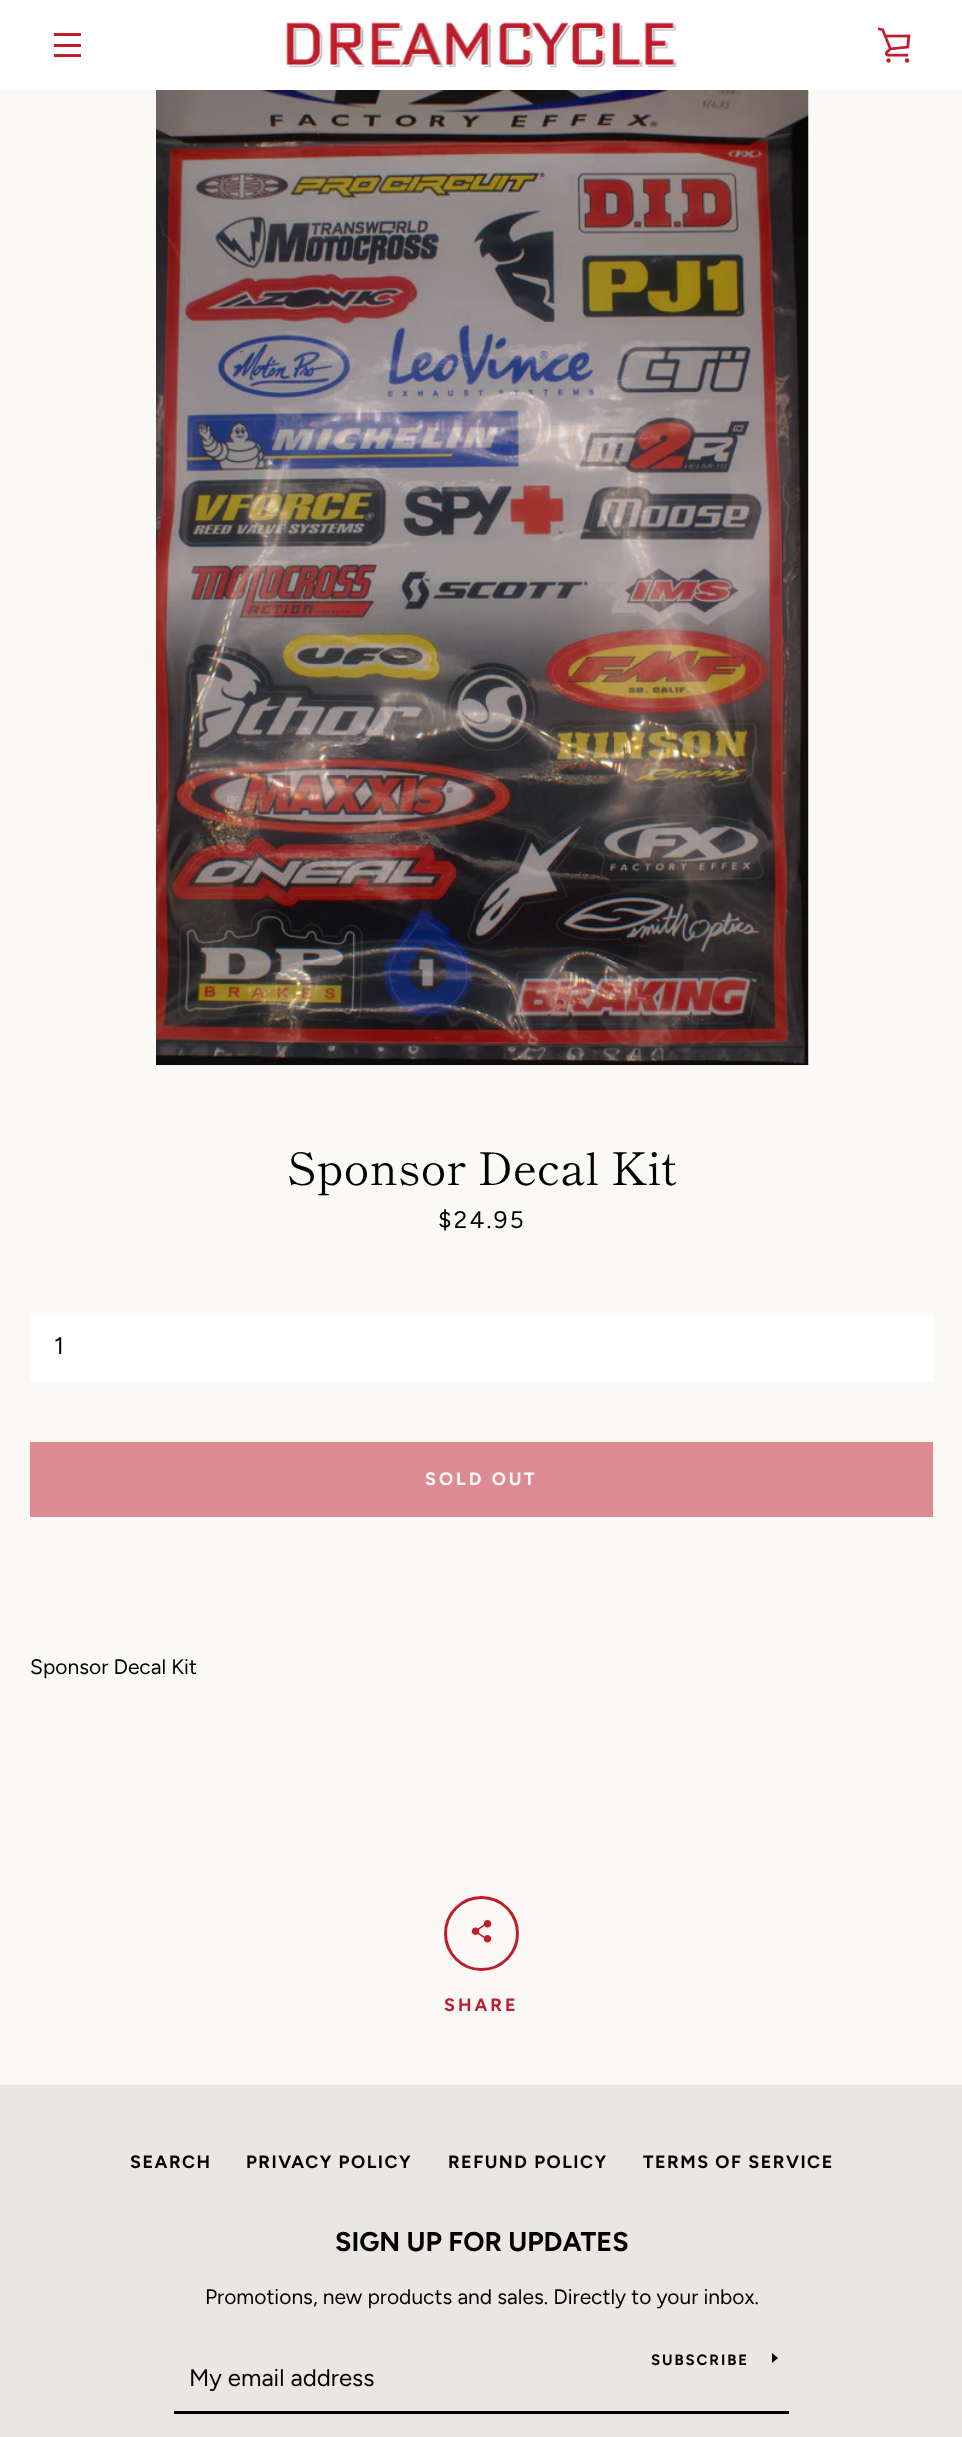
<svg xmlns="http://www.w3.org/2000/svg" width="962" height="2437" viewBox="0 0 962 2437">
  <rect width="100%" height="100%" fill="rgb(250,249,246)"/>
  <rect x="0" y="0" width="962" height="90" fill="rgb(255,255,255)"/>
  <rect x="54" y="33" width="27" height="3" fill="rgb(191,29,46)"/>
  <rect x="54" y="44" width="27" height="3" fill="rgb(191,29,46)"/>
  <rect x="54" y="54" width="27" height="3" fill="rgb(191,29,46)"/>
  <image x="286" y="22" width="391" height="46" href="pic1.png"/>
  <image x="878" y="27" width="33" height="36" href="pic2.png"/>
  <image x="156" y="90" width="653" height="975" href="pic3.png"/>
  <text x="287" y="1185" font-family="Shippori Mincho" font-size="45" fill="rgb(0,0,0)">Sponsor Decal Kit</text>
  <text x="438" y="1228" font-family="Figtree" font-size="24" letter-spacing="2.25" fill="rgb(0,0,0)">$24.95</text>
  <rect x="30" y="1313" width="903" height="69" fill="rgb(255,255,255)"/>
  <text x="54" y="1354" font-family="Figtree" font-size="24" fill="rgb(0,0,0)">1</text>
  <rect x="30" y="1442" width="903" height="75" fill="rgb(221,139,146)"/>
  <text x="425" y="1485" font-family="Figtree" font-size="18" font-weight="bold" letter-spacing="3" fill="rgb(253,252,251)">SOLD OUT</text>
  <text x="30" y="1674" font-family="Figtree" font-size="21" fill="rgb(0,0,0)">Sponsor Decal Kit</text>
  <circle cx="481.5" cy="1933.5" r="36" fill="none" stroke="rgb(191,29,46)" stroke-width="3"/>
  <image x="471" y="1920" width="21" height="23" href="pic4.png"/>
  <text x="444" y="2011" font-family="Figtree" font-size="18" font-weight="bold" letter-spacing="3" fill="rgb(191,29,46)">SHARE</text>
  <rect x="0" y="2085" width="962" height="352" fill="rgb(234,231,224)"/>
  <g font-family="Figtree" font-size="18" font-weight="bold" letter-spacing="1.5" fill="rgb(0,0,0)">
    <text x="130" y="2168">SEARCH</text>
    <text x="246" y="2168">PRIVACY POLICY</text>
    <text x="448" y="2168">REFUND POLICY</text>
    <text x="643" y="2168">TERMS OF SERVICE</text>
  </g>
  <text x="335" y="2251" font-family="Figtree" font-size="27" font-weight="bold" fill="rgb(0,0,0)">SIGN UP FOR UPDATES</text>
  <text x="205" y="2304" font-family="Figtree" font-size="21" fill="rgb(0,0,0)">Promotions, new products and sales. Directly to your inbox.</text>
  <rect x="174" y="2411" width="615" height="3" fill="rgb(0,0,0)"/>
  <text x="651" y="2365" font-family="Figtree" font-size="15" font-weight="bold" letter-spacing="1.9" fill="rgb(0,0,0)">SUBSCRIBE</text>
  <path d="M778 2358L772 2363V2353Z" fill="rgb(0,0,0)"/>
  <text x="189" y="2386" font-family="Figtree" font-size="24" fill="rgb(0,0,0)">My email address</text>
</svg>
